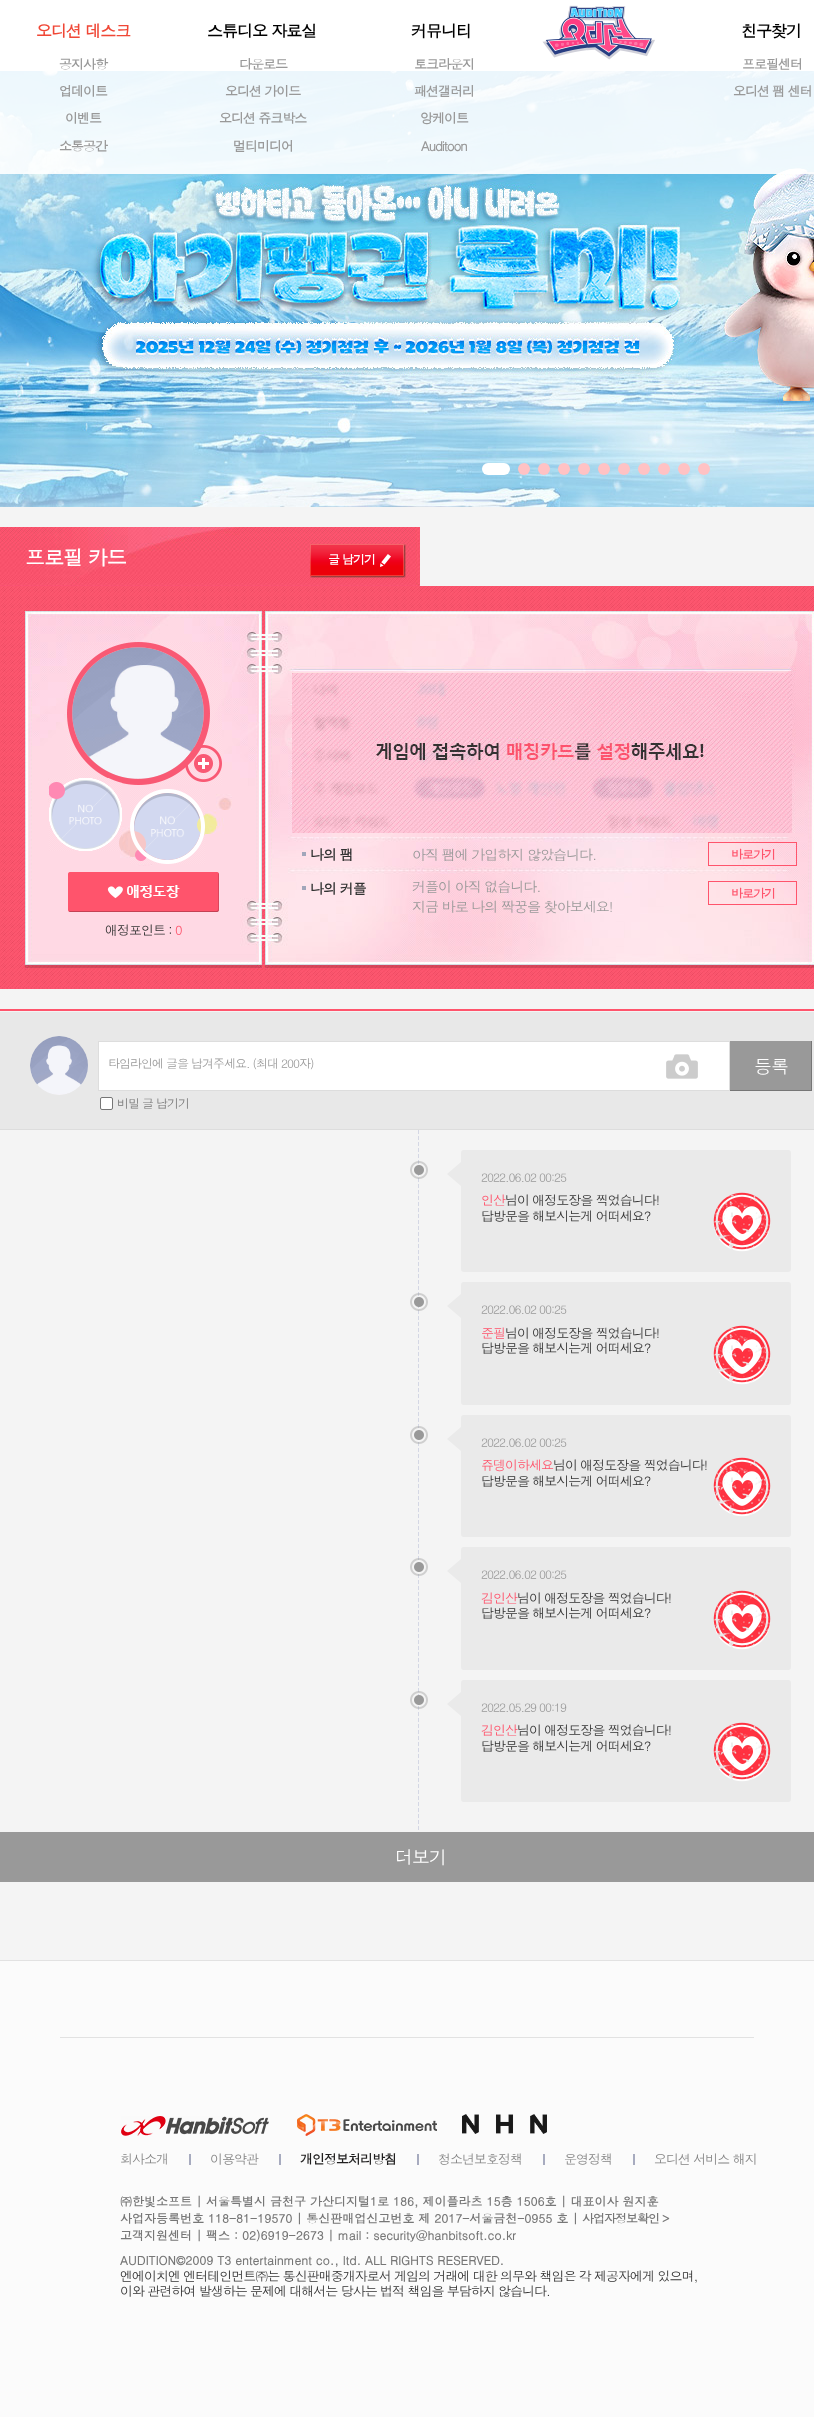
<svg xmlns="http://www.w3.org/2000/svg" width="814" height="2417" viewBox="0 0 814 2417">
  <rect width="100%" height="100%" fill="rgb(244,244,244)"/>
  <rect x="0" y="0" width="814" height="71" fill="rgb(255,255,255)"/>
  <image x="542" y="5" width="113" height="55" href="pic1.png"/>
  <text x="36" y="37" font-family="Dotum" font-size="16" font-weight="bold" letter-spacing="-1" fill="rgb(240,71,54)">오디션 데스크</text>
  <g font-family="Dotum" font-size="16" font-weight="bold" letter-spacing="-1" fill="rgb(0,0,0)">
    <text x="207" y="37">스튜디오 자료실</text>
    <text x="411" y="37">커뮤니티</text>
    <text x="741" y="37">친구찾기</text>
  </g>
  <image x="0" y="71" width="814" height="436" href="pic2.png"/>
  <rect x="0" y="71" width="814" height="103" fill="rgba(255,255,255,0.9)"/>
  <g font-family="Dotum" font-size="13" font-weight="bold" letter-spacing="-1" fill="rgb(153,153,153)">
    <text x="59" y="69">공지사항</text>
    <text x="59" y="96">업데이트</text>
    <text x="65" y="123">이벤트</text>
    <text x="59" y="151">소통공간</text>
    <text x="239" y="69">다운로드</text>
    <text x="225" y="96">오디션 가이드</text>
    <text x="219" y="123">오디션 쥬크박스</text>
    <text x="233" y="151">멀티미디어</text>
    <text x="414" y="69">토크라운지</text>
    <text x="414" y="96">패션갤러리</text>
    <text x="420" y="123">앙케이트</text>
    <text x="421" y="151">Auditoon</text>
    <text x="742" y="69">프로필센터</text>
    <text x="733" y="96">오디션 팸 센터</text>
  </g>
  <rect x="482" y="463" width="28" height="12" rx="6" fill="rgb(255,255,255)"/>
  <circle cx="524" cy="469" r="6" fill="rgb(255,194,196)"/>
  <circle cx="544" cy="469" r="6" fill="rgb(255,194,196)"/>
  <circle cx="564" cy="469" r="6" fill="rgb(255,194,196)"/>
  <circle cx="584" cy="469" r="6" fill="rgb(255,194,196)"/>
  <circle cx="604" cy="469" r="6" fill="rgb(255,194,196)"/>
  <circle cx="624" cy="469" r="6" fill="rgb(255,194,196)"/>
  <circle cx="644" cy="469" r="6" fill="rgb(255,194,196)"/>
  <circle cx="664" cy="469" r="6" fill="rgb(255,194,196)"/>
  <circle cx="684" cy="469" r="6" fill="rgb(255,194,196)"/>
  <circle cx="704" cy="469" r="6" fill="rgb(255,194,196)"/>
  <image x="0" y="527" width="420" height="59" href="pic3.png"/>
  <text x="25" y="565" font-family="Dotum" font-size="20" font-weight="bold" letter-spacing="-1" fill="rgb(255,255,255)">프로필 카드</text>
  <image x="0" y="586" width="814" height="403" href="pic4.png"/>
  <image x="310" y="544" width="96" height="34" href="pic5.png"/>
  <text x="328" y="564" font-family="Dotum" font-size="12" font-weight="bold" letter-spacing="-1" fill="rgb(255,255,255)">글 남기기</text>
  <image x="292" y="641" width="513" height="196" href="pic6.png"/>
  <rect x="302" y="852" width="4" height="4" fill="rgb(161,166,186)"/>
  <text x="310" y="860" font-family="Dotum" font-size="14" font-weight="bold" letter-spacing="-1" fill="rgb(51,51,51)">나의 팸</text>
  <text x="412" y="860" font-family="Dotum" font-size="14" letter-spacing="-1" fill="rgb(153,153,153)">아직 팸에 가입하지 않았습니다.</text>
  <rect x="708.5" y="842.5" width="88" height="23" fill="none" stroke="rgb(255,84,108)"/>
  <text x="731" y="859" font-family="Dotum" font-size="12" font-weight="bold" letter-spacing="-1" fill="rgb(255,84,108)">바로가기</text>
  <rect x="302" y="886" width="4" height="4" fill="rgb(161,166,186)"/>
  <text x="310" y="894" font-family="Dotum" font-size="14" font-weight="bold" letter-spacing="-1" fill="rgb(51,51,51)">나의 커플</text>
  <g font-family="Dotum" font-size="14" letter-spacing="-1" fill="rgb(153,153,153)">
    <text>
      <tspan x="412" y="892">커플이 아직 없습니다.</tspan>
      <tspan x="412" y="912">지금 바로 나의 짝꿍을 찾아보세요!</tspan>
    </text>
  </g>
  <rect x="708.5" y="881.5" width="88" height="23" fill="none" stroke="rgb(255,84,108)"/>
  <text x="731" y="898" font-family="Dotum" font-size="12" font-weight="bold" letter-spacing="-1" fill="rgb(255,84,108)">바로가기</text>
  <image x="72" y="647" width="132" height="132" href="pic8.png"/>
  <image x="67" y="642" width="155" height="143" href="pic7.png"/>
  <image x="52" y="781" width="67" height="67" href="pic10.png"/>
  <image x="49" y="778" width="73" height="73" href="pic9.png"/>
  <image x="134" y="793" width="67" height="67" href="pic12.png"/>
  <image x="130" y="789" width="75" height="75" href="pic11.png"/>
  <image x="68" y="872" width="151" height="40" href="pic13.png"/>
  <text x="105" y="935" font-family="Dotum" font-size="13" letter-spacing="-1" fill="rgb(51,51,51)">애정포인트 :</text>
  <text x="175" y="935" font-family="Dotum" font-size="13" letter-spacing="-1" fill="rgb(255,84,108)">0</text>
  <rect x="0" y="1009" width="814" height="2" fill="rgb(255,84,108)"/>
  <rect x="0" y="1129" width="814" height="1" fill="rgb(221,221,221)"/>
  <rect x="0" y="1012" width="814" height="117" fill="rgb(232,232,232)"/>
  <image x="30" y="1036" width="58" height="59" href="pic14.png"/>
  <image x="30" y="1036" width="45" height="59" href="pic15.png"/>
  <rect x="98.5" y="1041.5" width="631" height="49" fill="rgb(255,255,255)" stroke="rgb(221,221,221)"/>
  <text x="108" y="1068" font-family="Dotum" font-size="12" letter-spacing="-1" fill="rgb(153,153,153)">타임라인에 글을 남겨주세요. (최대 200자)</text>
  <image x="666" y="1054" width="32" height="25" href="pic16.png"/>
  <rect x="730" y="1041" width="81" height="49" fill="rgb(153,153,153)"/>
  <rect x="811" y="1041" width="1" height="50" fill="rgb(118,118,118)"/>
  <rect x="730" y="1090" width="82" height="1" fill="rgb(118,118,118)"/>
  <text x="754" y="1073" font-family="Dotum" font-size="18" letter-spacing="-1" fill="rgb(255,255,255)">등록</text>
  <rect x="100.5" y="1097.5" width="12" height="12" rx="1.5" fill="rgb(255,255,255)" stroke="rgb(118,118,118)"/>
  <text x="117" y="1108" font-family="Dotum" font-size="12" letter-spacing="-1" fill="rgb(119,119,119)">비밀 글 남기기</text>
  <image x="418" y="1130" width="1" height="700" href="pic17.png"/>
  <image x="410" y="1161" width="18" height="18" href="pic18.png"/>
  <path d="M461 1162V1186L447 1174Z" fill="rgb(234,234,234)"/>
  <rect x="461" y="1150" width="330" height="122" rx="3" fill="rgb(234,234,234)"/>
  <text x="481" y="1182" font-family="Dotum" font-size="12" letter-spacing="-1" fill="rgb(153,153,153)">2022.06.02 00:25</text>
  <text x="481" y="1205" font-family="Dotum" font-size="13" letter-spacing="-1" fill="rgb(255,84,108)">인산</text>
  <g font-family="Dotum" font-size="13" letter-spacing="-1" fill="rgb(51,51,51)">
    <text x="505" y="1205">님이 애정도장을 찍었습니다!</text>
    <text x="481" y="1221">답방문을 해보시는게 어떠세요?</text>
  </g>
  <image x="713" y="1192" width="58" height="60" href="pic19.png"/>
  <image x="410" y="1293" width="18" height="18" href="pic18.png"/>
  <path d="M461 1294V1318L447 1306Z" fill="rgb(234,234,234)"/>
  <rect x="461" y="1282" width="330" height="123" rx="3" fill="rgb(234,234,234)"/>
  <text x="481" y="1314" font-family="Dotum" font-size="12" letter-spacing="-1" fill="rgb(153,153,153)">2022.06.02 00:25</text>
  <text x="481" y="1338" font-family="Dotum" font-size="13" letter-spacing="-1" fill="rgb(255,84,108)">준필</text>
  <g font-family="Dotum" font-size="13" letter-spacing="-1" fill="rgb(51,51,51)">
    <text x="505" y="1338">님이 애정도장을 찍었습니다!</text>
    <text x="481" y="1353">답방문을 해보시는게 어떠세요?</text>
  </g>
  <image x="713" y="1325" width="58" height="60" href="pic19.png"/>
  <image x="410" y="1426" width="18" height="18" href="pic20.png"/>
  <path d="M461 1427V1451L447 1439Z" fill="rgb(234,234,234)"/>
  <rect x="461" y="1415" width="330" height="122" rx="3" fill="rgb(234,234,234)"/>
  <text x="481" y="1447" font-family="Dotum" font-size="12" letter-spacing="-1" fill="rgb(153,153,153)">2022.06.02 00:25</text>
  <text x="481" y="1470" font-family="Dotum" font-size="13" letter-spacing="-1" fill="rgb(255,84,108)">쥬뎅이하세요</text>
  <g font-family="Dotum" font-size="13" letter-spacing="-1" fill="rgb(51,51,51)">
    <text x="553" y="1470">님이 애정도장을 찍었습니다!</text>
    <text x="481" y="1486">답방문을 해보시는게 어떠세요?</text>
  </g>
  <image x="713" y="1457" width="58" height="60" href="pic19.png"/>
  <image x="410" y="1558" width="18" height="18" href="pic20.png"/>
  <path d="M461 1559V1583L447 1571Z" fill="rgb(234,234,234)"/>
  <rect x="461" y="1547" width="330" height="123" rx="3" fill="rgb(234,234,234)"/>
  <text x="481" y="1579" font-family="Dotum" font-size="12" letter-spacing="-1" fill="rgb(153,153,153)">2022.06.02 00:25</text>
  <text x="481" y="1603" font-family="Dotum" font-size="13" letter-spacing="-1" fill="rgb(255,84,108)">김인산</text>
  <g font-family="Dotum" font-size="13" letter-spacing="-1" fill="rgb(51,51,51)">
    <text x="517" y="1603">님이 애정도장을 찍었습니다!</text>
    <text x="481" y="1618">답방문을 해보시는게 어떠세요?</text>
  </g>
  <image x="713" y="1590" width="58" height="60" href="pic19.png"/>
  <image x="410" y="1691" width="18" height="18" href="pic21.png"/>
  <path d="M461 1692V1716L447 1704Z" fill="rgb(234,234,234)"/>
  <rect x="461" y="1680" width="330" height="122" rx="3" fill="rgb(234,234,234)"/>
  <text x="481" y="1712" font-family="Dotum" font-size="12" letter-spacing="-1" fill="rgb(153,153,153)">2022.05.29 00:19</text>
  <text x="481" y="1735" font-family="Dotum" font-size="13" letter-spacing="-1" fill="rgb(255,84,108)">김인산</text>
  <g font-family="Dotum" font-size="13" letter-spacing="-1" fill="rgb(51,51,51)">
    <text x="517" y="1735">님이 애정도장을 찍었습니다!</text>
    <text x="481" y="1751">답방문을 해보시는게 어떠세요?</text>
  </g>
  <image x="713" y="1722" width="58" height="60" href="pic19.png"/>
  <rect x="0" y="1832" width="814" height="50" fill="rgb(153,153,153)"/>
  <text x="395" y="1864" font-family="Dotum" font-size="18" letter-spacing="-1" fill="rgb(255,255,255)">더보기</text>
  <rect x="0" y="1961" width="814" height="456" fill="rgb(251,251,251)"/>
  <rect x="0" y="1960" width="814" height="1" fill="rgb(226,226,226)"/>
  <rect x="60" y="2037" width="694" height="1" fill="rgb(226,226,226)"/>
  <image x="121" y="2116" width="148" height="20" href="pic22.png"/>
  <image x="297" y="2114" width="140" height="22" href="pic23.png"/>
  <image x="462" y="2114" width="85" height="20" href="pic24.png"/>
  <text x="120" y="2164" font-family="Dotum" font-size="13" letter-spacing="-1" fill="rgb(134,134,134)">회사소개</text>
  <rect x="189" y="2154" width="2" height="11" fill="rgb(167,171,191)"/>
  <text x="210" y="2164" font-family="Dotum" font-size="13" letter-spacing="-1" fill="rgb(134,134,134)">이용약관</text>
  <rect x="279" y="2154" width="2" height="11" fill="rgb(167,171,191)"/>
  <text x="300" y="2164" font-family="Dotum" font-size="13" font-weight="bold" letter-spacing="-1" fill="rgb(32,31,31)">개인정보처리방침</text>
  <rect x="417" y="2154" width="2" height="11" fill="rgb(167,171,191)"/>
  <text x="438" y="2164" font-family="Dotum" font-size="13" letter-spacing="-1" fill="rgb(134,134,134)">청소년보호정책</text>
  <rect x="543" y="2154" width="2" height="11" fill="rgb(167,171,191)"/>
  <text x="564" y="2164" font-family="Dotum" font-size="13" letter-spacing="-1" fill="rgb(134,134,134)">운영정책</text>
  <rect x="633" y="2154" width="2" height="11" fill="rgb(167,171,191)"/>
  <text x="654" y="2164" font-family="Dotum" font-size="13" letter-spacing="-1" fill="rgb(134,134,134)">오디션 서비스 해지</text>
  <g font-family="Dotum" font-size="12" font-weight="bold" fill="rgb(119,119,119)">
    <text>
      <tspan x="120" y="2206">㈜한빛소프트 | 서울특별시 금천구 가산디지털1로 186, 제이플라츠 15층 1506호 | 대표이사 원지훈</tspan>
      <tspan x="120" y="2223">사업자등록번호 118-81-19570 | 통신판매업신고번호 제 2017-서울금천-0955 호 |</tspan>
    </text>
  </g>
  <text x="582" y="2223" font-family="Dotum" font-size="12" font-weight="bold" letter-spacing="-1" fill="rgb(119,119,119)">사업자정보확인 &gt;</text>
  <g font-family="Dotum" font-size="12" font-weight="bold" fill="rgb(119,119,119)">
    <text x="120" y="2240">고객지원센터 | 팩스 : 02)6919-2673 | mail : security@hanbitsoft.co.kr</text>
    <text x="120" y="2265">AUDITION©2009 T3 entertainment co., ltd. ALL RIGHTS RESERVED.</text>
  </g>
  <g font-family="Dotum" font-size="13" letter-spacing="-1" fill="rgb(51,51,51)">
    <text>
      <tspan x="120" y="2281">엔에이치엔 엔터테인먼트㈜는 통신판매중개자로서 게임의 거래에 대한 의무와 책임은 각 제공자에게 있으며,</tspan>
      <tspan x="120" y="2296">이와 관련하여 발생하는 문제에 대해서는 당사는 법적 책임을 부담하지 않습니다.</tspan>
    </text>
  </g>
</svg>
